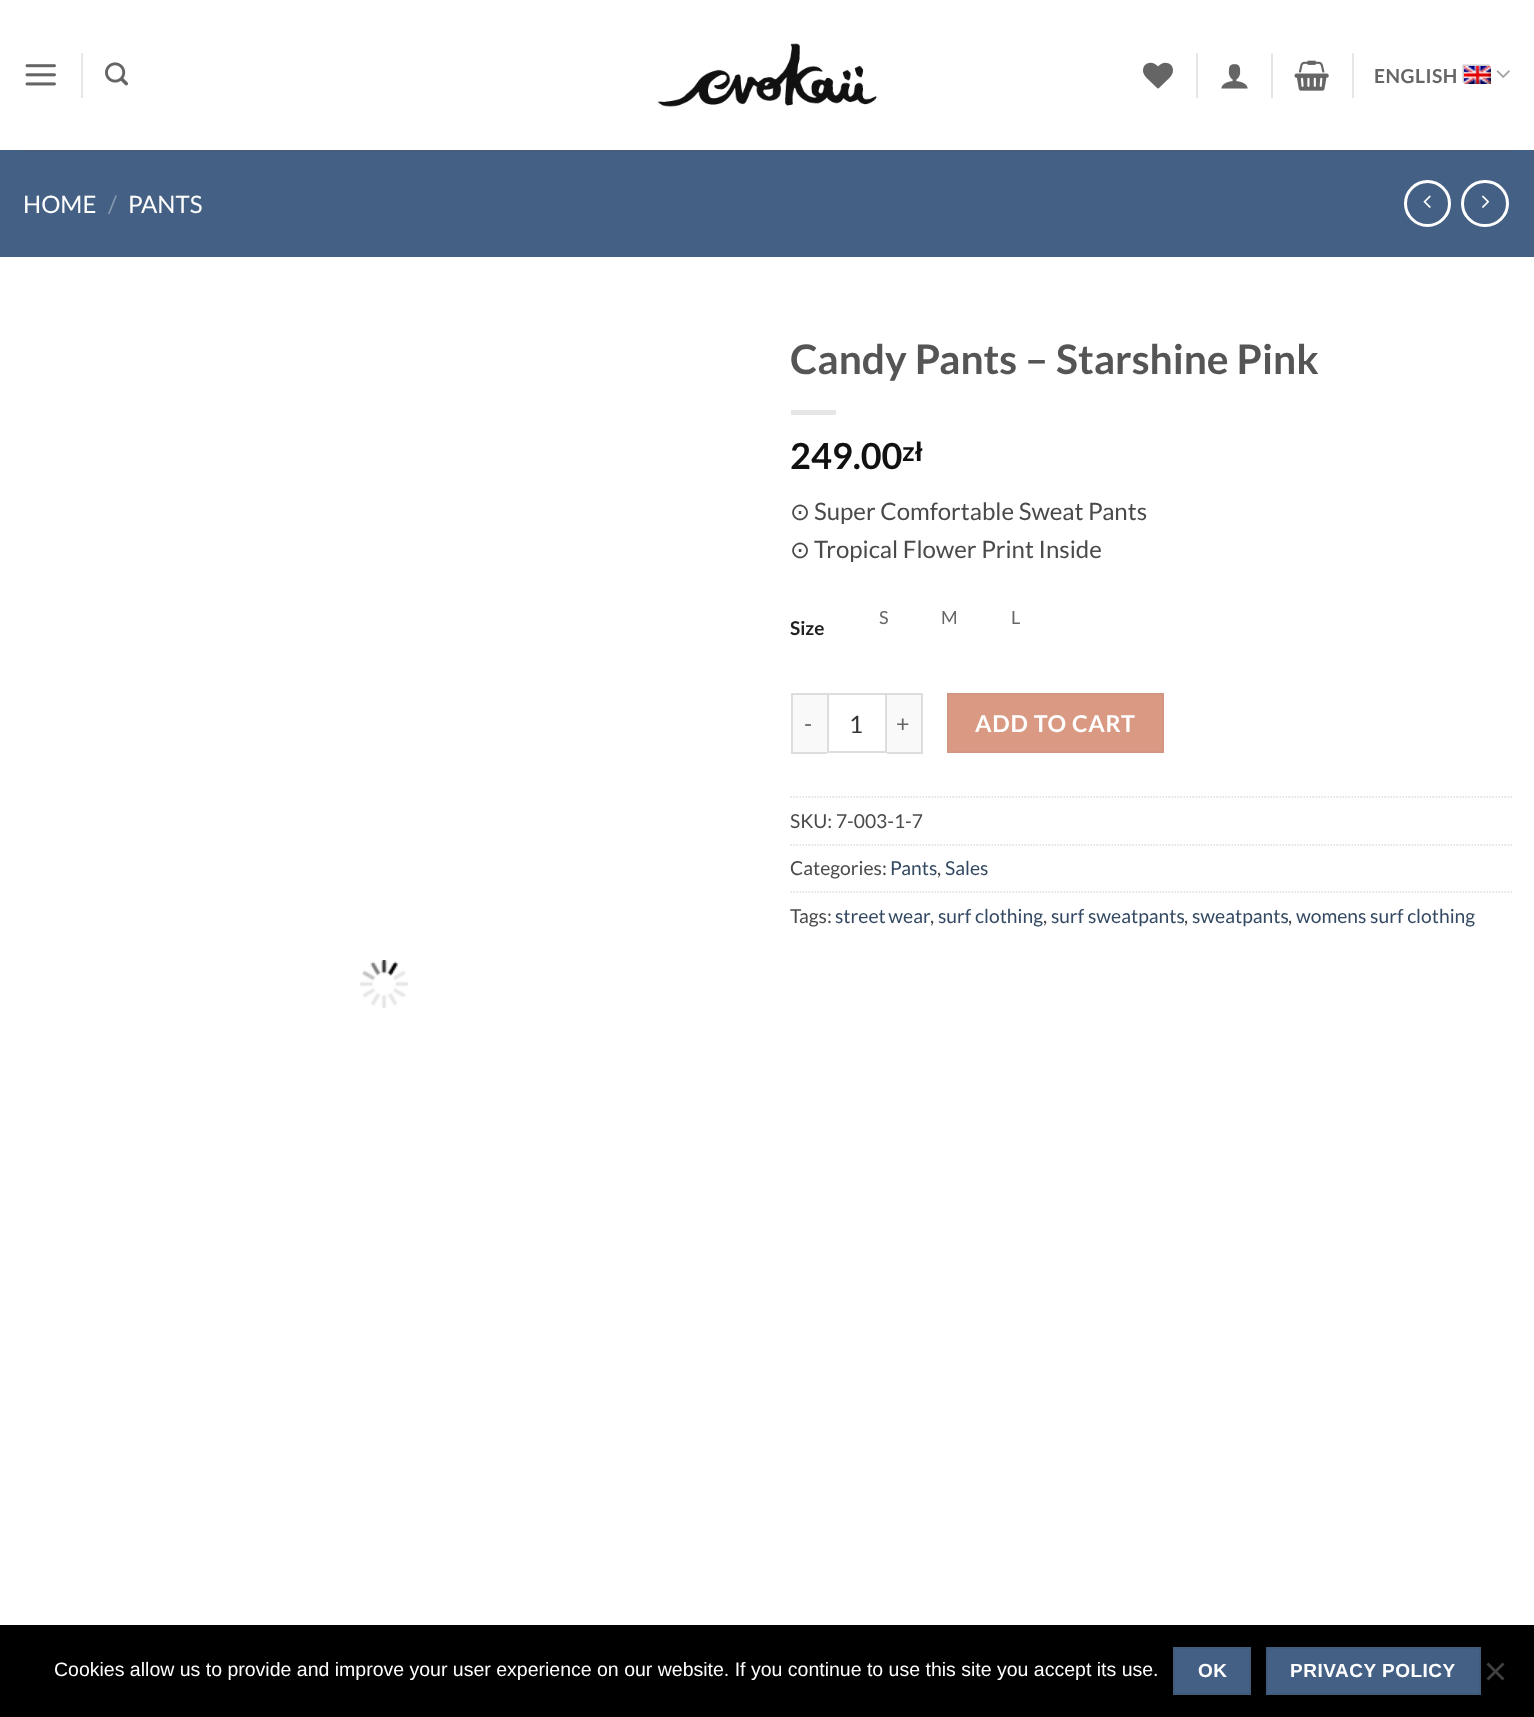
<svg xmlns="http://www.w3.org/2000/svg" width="1534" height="1717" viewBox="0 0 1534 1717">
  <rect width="100%" height="100%" fill="rgb(255,255,255)"/>
  <image x="25" y="64" width="31" height="22" href="pic1.png"/>
  <rect x="81" y="53" width="2" height="45" fill="rgb(230,230,230)"/>
  <image x="105" y="62" width="23" height="24" href="pic2.png"/>
  <image x="657" y="43" width="220" height="64" href="pic3.png"/>
  <image x="1143" y="62" width="30" height="27" href="pic4.png"/>
  <rect x="1196" y="53" width="2" height="45" fill="rgb(230,230,230)"/>
  <image x="1221" y="64" width="27" height="25" href="pic5.png"/>
  <rect x="1271" y="53" width="2" height="45" fill="rgb(230,230,230)"/>
  <image x="1294" y="60" width="35" height="31" href="pic6.png"/>
  <rect x="1352" y="53" width="2" height="45" fill="rgb(230,230,230)"/>
  <text x="1374" y="83" font-family="Lato" font-size="19.25" font-weight="bold" letter-spacing="0.5" fill="rgb(102,102,102)">ENGLISH</text>
  <image x="1462" y="64" width="29" height="20" href="pic7.png"/>
  <image x="1496" y="70" width="14" height="8" href="pic8.png"/>
  <rect x="0" y="150" width="1534" height="107" fill="rgb(68,96,132)"/>
  <rect x="23" y="150" width="1489" height="2" fill="rgb(69,94,126)"/>
  <text x="23" y="213" font-family="Lato" font-size="24" fill="rgb(255,255,255)">HOME</text>
  <text x="108" y="213" font-family="Lato" font-size="24" fill="rgb(133,152,175)">/</text>
  <text x="128" y="213" font-family="Lato" font-size="24" fill="rgb(255,255,255)">PANTS</text>
  <circle cx="1427.5" cy="203.5" r="22" fill="none" stroke="rgb(255,255,255)" stroke-width="3"/>
  <image x="1423" y="195" width="8" height="13" href="pic9.png"/>
  <rect x="1462.5" y="181.5" width="45" height="44" rx="22" fill="none" stroke="rgb(255,255,255)" stroke-width="3"/>
  <image x="1482" y="195" width="8" height="13" href="pic10.png"/>
  <text x="790" y="374" font-family="Lato" font-size="40.75" font-weight="bold" fill="rgb(85,85,85)">Candy Pants – Starshine Pink</text>
  <rect x="791" y="410" width="45" height="5" fill="rgb(230,230,230)"/>
  <text x="790" y="469" font-family="Lato" font-size="36" font-weight="bold" fill="rgb(17,17,17)">249.00</text>
  <text x="902" y="461" font-family="Lato" font-size="27" font-weight="bold" fill="rgb(17,17,17)">z</text>
  <text x="915" y="461" font-family="Liberation Sans" font-size="27" font-weight="bold" fill="rgb(17,17,17)">ł</text>
  <text x="790" y="520" font-family="DejaVu Sans" font-size="24" fill="rgb(74,74,74)">⊙</text>
  <text x="814" y="520" font-family="Lato" font-size="24" fill="rgb(74,74,74)">Super Comfortable Sweat Pants</text>
  <text x="790" y="558" font-family="DejaVu Sans" font-size="24" fill="rgb(74,74,74)">⊙</text>
  <text x="814" y="558" font-family="Lato" font-size="24" fill="rgb(74,74,74)">Tropical Flower Print Inside</text>
  <g font-family="Lato" font-size="18" fill="rgb(102,102,102)">
    <text x="879" y="624">S</text>
    <text x="941" y="624">M</text>
    <text x="1011" y="624">L</text>
  </g>
  <text x="790" y="635" font-family="Lato" font-size="19" font-weight="bold" fill="rgb(34,34,34)">Size</text>
  <rect x="793" y="695" width="34" height="57" fill="rgb(249,249,249)"/>
  <rect x="791" y="693" width="36" height="2" fill="rgb(221,221,221)"/>
  <rect x="791" y="752" width="36" height="2" fill="rgb(221,221,221)"/>
  <rect x="791" y="693" width="2" height="60" fill="rgb(221,221,221)"/>
  <text x="804" y="732" font-family="Lato" font-size="23.25" letter-spacing="0.75" fill="rgb(102,102,102)">-</text>
  <rect x="828" y="694" width="58" height="58" fill="none" stroke="rgb(221,221,221)" stroke-width="2"/>
  <text x="849" y="733" font-family="Lato" font-size="24" fill="rgb(51,51,51)">1</text>
  <rect x="887" y="695" width="34" height="57" fill="rgb(249,249,249)"/>
  <rect x="887" y="693" width="36" height="2" fill="rgb(221,221,221)"/>
  <rect x="921" y="693" width="2" height="60" fill="rgb(221,221,221)"/>
  <rect x="887" y="752" width="36" height="2" fill="rgb(221,221,221)"/>
  <text x="896" y="732" font-family="Lato" font-size="23.25" letter-spacing="0.75" fill="rgb(102,102,102)">+</text>
  <rect x="948" y="694" width="215" height="58" fill="rgb(217,153,131)" stroke="rgb(211,150,130)" stroke-width="2"/>
  <text x="975" y="732" font-family="Lato" font-size="23.25" font-weight="bold" letter-spacing="0.75" fill="rgb(255,255,255)">ADD TO CART</text>
  <path d="M790.5 797H1512" fill="none" stroke="rgb(221,221,221)" stroke-width="1.5" stroke-dasharray="1.5 1.5"/>
  <text x="790" y="828" font-family="Lato" font-size="19.25" fill="rgb(74,74,74)">SKU: 7-003-1-7</text>
  <path d="M790.5 845H1512" fill="none" stroke="rgb(221,221,221)" stroke-width="1.5" stroke-dasharray="1.5 1.5"/>
  <text x="790" y="875" font-family="Lato" font-size="19.25" fill="rgb(74,74,74)">Categories:</text>
  <text x="890" y="875" font-family="Lato" font-size="19.25" fill="rgb(51,72,98)">Pants</text>
  <text x="937" y="875" font-family="Lato" font-size="19.25" fill="rgb(74,74,74)">,</text>
  <text x="945" y="875" font-family="Lato" font-size="19.25" fill="rgb(51,72,98)">Sales</text>
  <path d="M790.5 892H1512" fill="none" stroke="rgb(221,221,221)" stroke-width="1.5" stroke-dasharray="1.5 1.5"/>
  <text x="790" y="923" font-family="Lato" font-size="19.25" fill="rgb(74,74,74)">Tags:</text>
  <text x="835" y="923" word-spacing="-1" font-family="Lato" font-size="19.25" fill="rgb(51,72,98)">street wear</text>
  <text x="930" y="923" font-family="Lato" font-size="19.25" fill="rgb(74,74,74)">,</text>
  <text x="938" y="923" font-family="Lato" font-size="19.25" fill="rgb(51,72,98)">surf clothing</text>
  <text x="1043" y="923" font-family="Lato" font-size="19.25" fill="rgb(74,74,74)">,</text>
  <text x="1051" y="923" font-family="Lato" font-size="19.25" fill="rgb(51,72,98)">surf sweatpants</text>
  <text x="1184" y="923" font-family="Lato" font-size="19.25" fill="rgb(74,74,74)">,</text>
  <text x="1192" y="923" font-family="Lato" font-size="19.25" fill="rgb(51,72,98)">sweatpants</text>
  <text x="1288" y="923" font-family="Lato" font-size="19.25" fill="rgb(74,74,74)">,</text>
  <text x="1296" y="923" font-family="Lato" font-size="19.25" fill="rgb(51,72,98)">womens surf clothing</text>
  <image x="360" y="960" width="48" height="48" href="pic11.png"/>
  <rect x="0" y="1625" width="1534" height="92" fill="rgb(0,0,0)"/>
  <text x="54" y="1676" font-family="Liberation Sans" font-size="19.5" fill="rgb(255,255,255)">Cookies allow us to provide and improve your user experience on our website. If you continue to use this site you accept its use.</text>
  <rect x="1174" y="1648" width="76" height="46" fill="rgb(68,96,132)" stroke="rgb(65,91,125)" stroke-width="2"/>
  <text x="1198" y="1677" font-family="Liberation Sans" font-size="19" font-weight="bold" letter-spacing="0.5" fill="rgb(255,255,255)">OK</text>
  <rect x="1267" y="1648" width="213" height="46" fill="rgb(68,96,132)" stroke="rgb(65,91,125)" stroke-width="2"/>
  <text x="1290" y="1677" font-family="Liberation Sans" font-size="19" font-weight="bold" letter-spacing="0.5" fill="rgb(255,255,255)">PRIVACY POLICY</text>
  <path d="M1502.5 1662.5L1504.5 1664.5L1488.5 1680.5L1486.5 1678.5Z" fill="rgb(64,64,64)"/>
  <path d="M1486.5 1664.5L1488.5 1662.5L1504.5 1678.5L1502.5 1680.5Z" fill="rgb(64,64,64)"/>
</svg>
